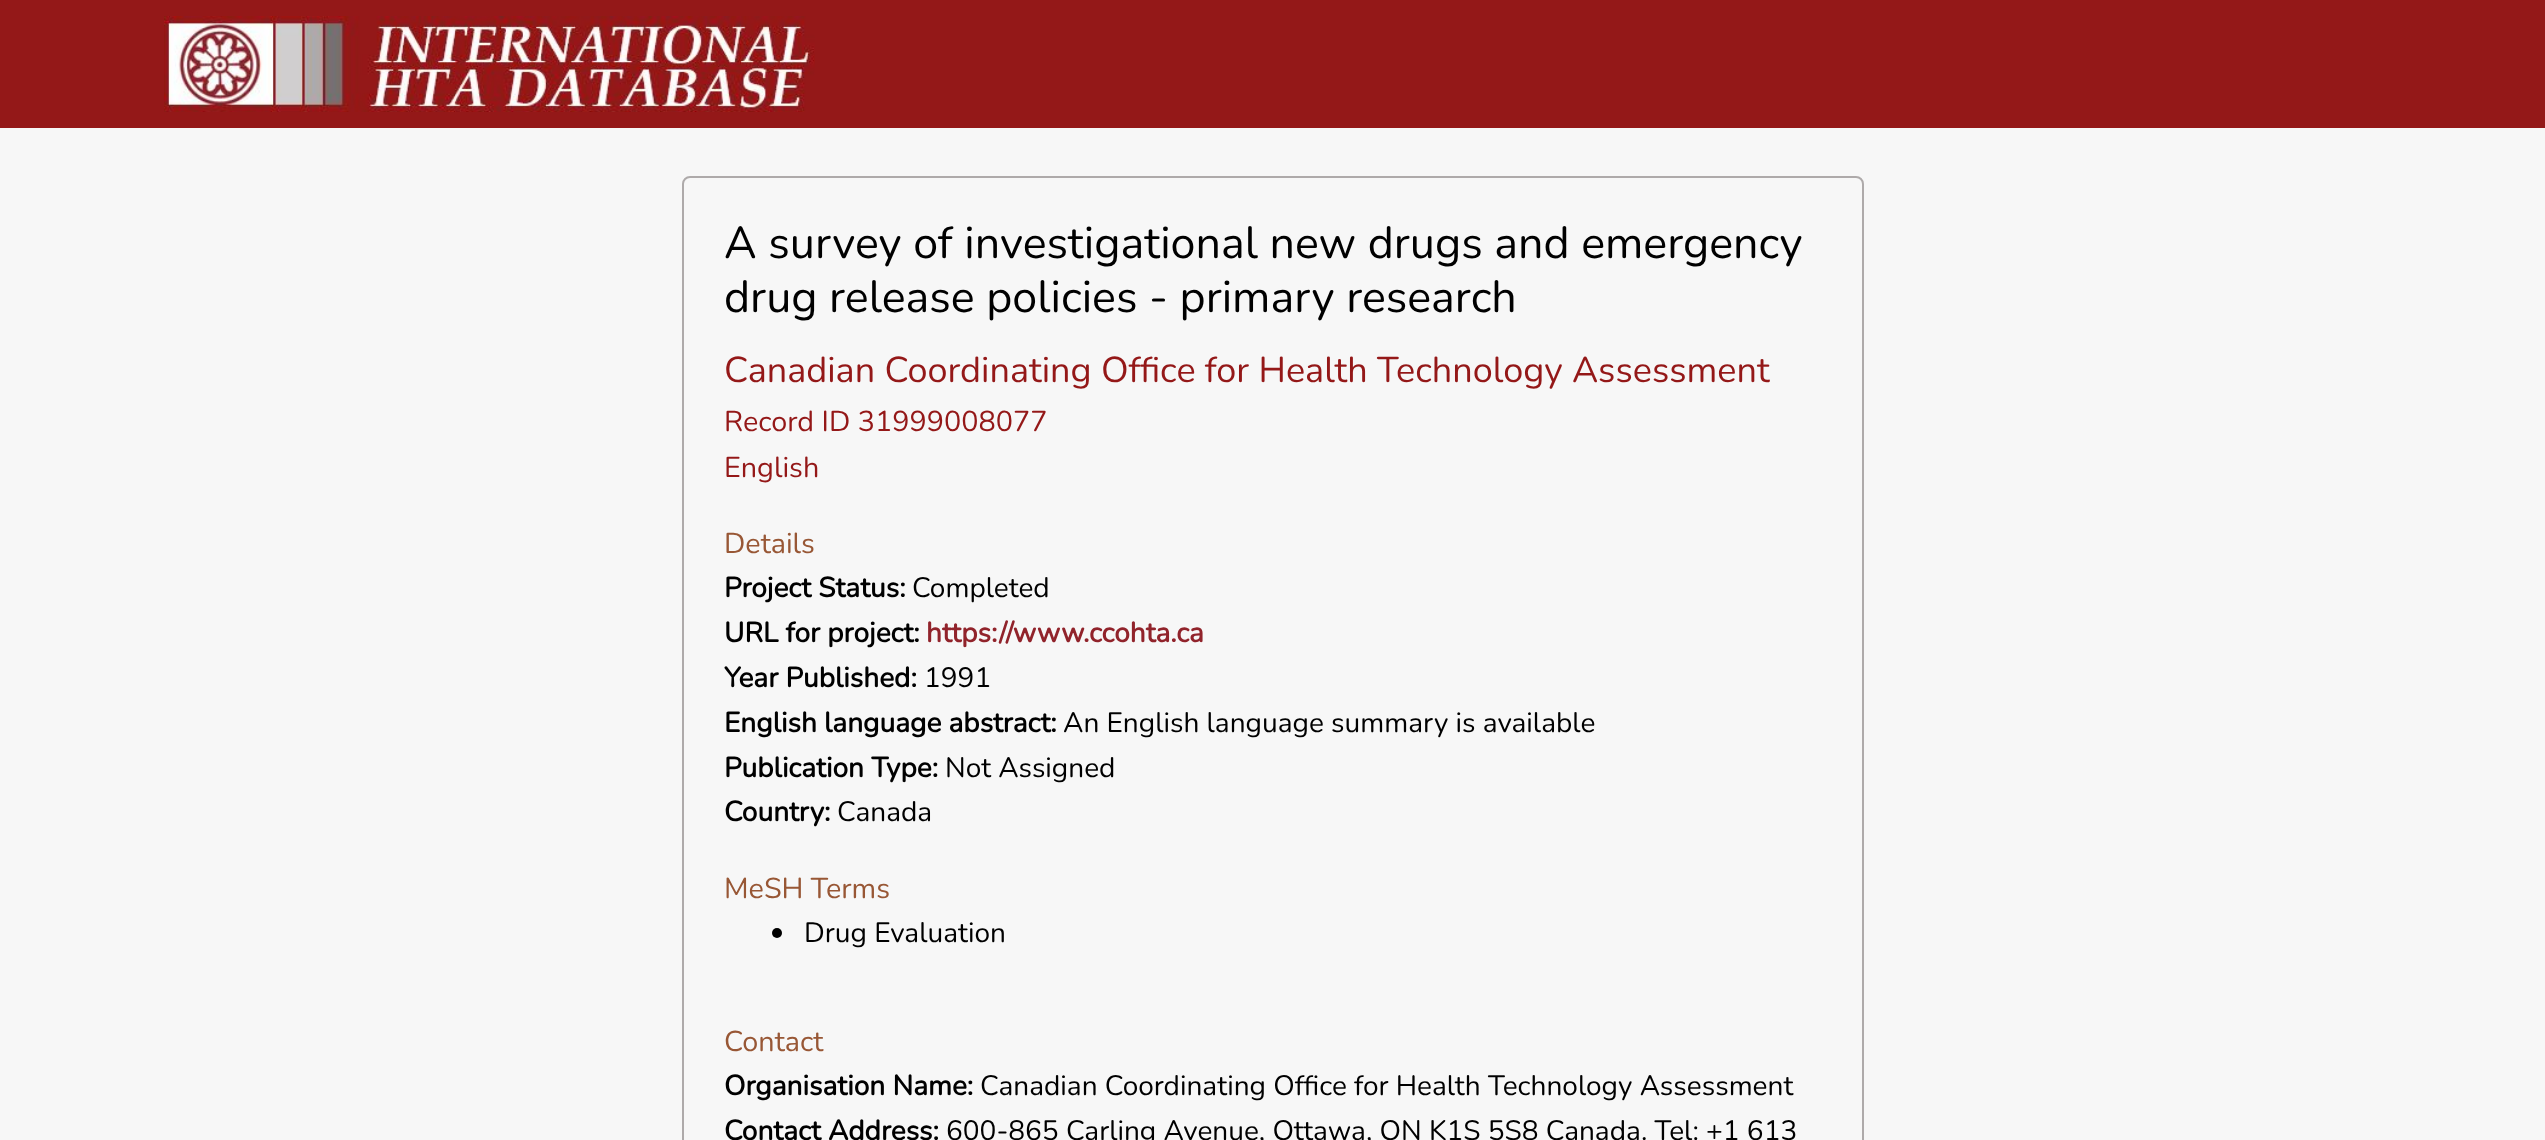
<svg xmlns="http://www.w3.org/2000/svg" width="2545" height="1140" viewBox="0 0 2545 1140">
  <rect width="100%" height="100%" fill="rgb(247,247,247)"/>
  <rect x="0" y="0" width="2545" height="128" fill="rgb(148,24,24)"/>
  <image x="164" y="16" width="651" height="96" href="pic1.png"/>
  <rect x="683" y="177" width="1180" height="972" rx="7" fill="none" stroke="rgb(174,170,170)" stroke-width="2"/>
  <g font-family="Nunito" font-size="44.8" font-weight="200" fill="rgb(0,0,0)">
    <text>
      <tspan x="724" y="258">A survey of investigational new drugs and emergency</tspan>
      <tspan x="724" y="312">drug release policies - primary research</tspan>
    </text>
  </g>
  <text x="724" y="382" font-family="Nunito" font-size="36" font-weight="200" fill="rgb(148,24,24)">Canadian Coordinating Office for Health Technology Assessment</text>
  <g font-family="Nunito" font-size="28.75" font-weight="200" fill="rgb(148,24,24)">
    <text>
      <tspan x="724" y="431">Record ID 31999008077</tspan>
      <tspan x="724" y="477">English</tspan>
    </text>
  </g>
  <text x="724" y="553" font-family="Nunito" font-size="28.75" font-weight="200" fill="rgb(152,87,53)">Details</text>
  <text x="724" y="597" font-family="Nunito" font-size="28" font-weight="bold" fill="rgb(0,0,0)">Project Status:</text>
  <text x="912" y="597" font-family="Nunito" font-size="28" font-weight="200" fill="rgb(0,0,0)">Completed</text>
  <text x="724" y="642" font-family="Nunito" font-size="28" font-weight="bold" fill="rgb(0,0,0)">URL for project:</text>
  <text x="926" y="642" font-family="Nunito" font-size="28" font-weight="bold" fill="rgb(145,35,43)">https://www.ccohta.ca</text>
  <text x="724" y="687" font-family="Nunito" font-size="28" font-weight="bold" fill="rgb(0,0,0)">Year Published:</text>
  <text x="924" y="687" font-family="Nunito" font-size="28" font-weight="200" fill="rgb(0,0,0)">1991</text>
  <text x="724" y="732" font-family="Nunito" font-size="28" font-weight="bold" fill="rgb(0,0,0)">English language abstract:</text>
  <text x="1063" y="732" font-family="Nunito" font-size="28" font-weight="200" fill="rgb(0,0,0)">An English language summary is available</text>
  <text x="724" y="777" font-family="Nunito" font-size="28" font-weight="bold" fill="rgb(0,0,0)">Publication Type:</text>
  <text x="945" y="777" font-family="Nunito" font-size="28" font-weight="200" fill="rgb(0,0,0)">Not Assigned</text>
  <text x="724" y="821" font-family="Nunito" font-size="28" font-weight="bold" fill="rgb(0,0,0)">Country:</text>
  <text x="837" y="821" font-family="Nunito" font-size="28" font-weight="200" fill="rgb(0,0,0)">Canada</text>
  <text x="724" y="898" font-family="Nunito" font-size="28.75" font-weight="200" fill="rgb(152,87,53)">MeSH Terms</text>
  <circle cx="777" cy="933" r="5" fill="rgb(0,0,0)"/>
  <text x="804" y="942" font-family="Nunito" font-size="28" font-weight="200" fill="rgb(0,0,0)">Drug Evaluation</text>
  <text x="724" y="1051" font-family="Nunito" font-size="28.75" font-weight="200" fill="rgb(152,87,53)">Contact</text>
  <text x="724" y="1095" font-family="Nunito" font-size="28" font-weight="bold" fill="rgb(0,0,0)">Organisation Name:</text>
  <text x="980" y="1095" font-family="Nunito" font-size="28" font-weight="200" fill="rgb(0,0,0)">Canadian Coordinating Office for Health Technology Assessment</text>
  <text x="724" y="1140" font-family="Nunito" font-size="28" font-weight="bold" fill="rgb(0,0,0)">Contact Address:</text>
  <text x="946" y="1140" font-family="Nunito" font-size="28" font-weight="200" fill="rgb(0,0,0)">600-865 Carling Avenue, Ottawa, ON K1S 5S8 Canada. Tel: +1 613</text>
</svg>
